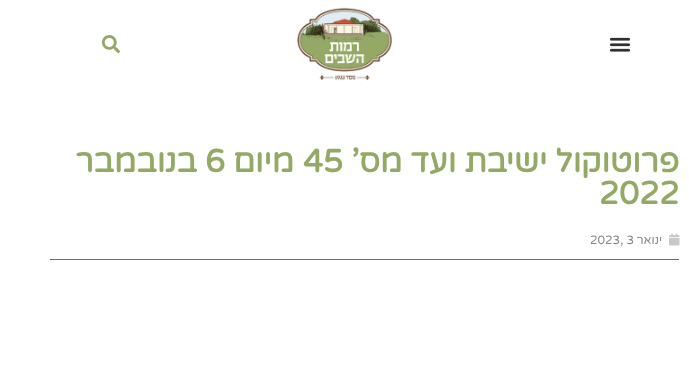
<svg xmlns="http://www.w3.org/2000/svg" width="689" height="369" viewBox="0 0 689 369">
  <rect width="100%" height="100%" fill="rgb(255,255,255)"/>
  <image x="609" y="37" width="22" height="15" href="pic1.png"/>
  <image x="297" y="7" width="96" height="74" href="pic2.png"/>
  <image x="101" y="35" width="19" height="19" href="pic3.png"/>
  <text x="679" y="172" font-family="Varela Round" font-size="32" font-weight="bold" direction="rtl" fill="rgb(149,169,102)">פרוטוקול ישיבת ועד מס’</text>
  <text x="303" y="172" font-family="Varela Round" font-size="32" font-weight="bold" fill="rgb(149,169,102)">45</text>
  <text x="294" y="172" font-family="Varela Round" font-size="32" font-weight="bold" direction="rtl" fill="rgb(149,169,102)">מיום</text>
  <text x="205" y="172" font-family="Varela Round" font-size="32" font-weight="bold" fill="rgb(149,169,102)">6</text>
  <text x="197" y="172" font-family="Varela Round" font-size="32" font-weight="bold" direction="rtl" fill="rgb(149,169,102)">בנובמבר</text>
  <text x="599" y="204" font-family="Varela Round" font-size="32" font-weight="bold" fill="rgb(149,169,102)">2022</text>
  <image x="669" y="233" width="11" height="13" href="pic4.png"/>
  <text x="662" y="244" font-family="Varela Round" font-size="12" direction="rtl" fill="rgb(135,135,135)">ינואר</text>
  <text x="590" y="244" font-family="Varela Round" font-size="12" fill="rgb(135,135,135)">2023, 3</text>
  <rect x="50" y="259" width="629" height="1" fill="rgb(128,101,82)"/>
</svg>
